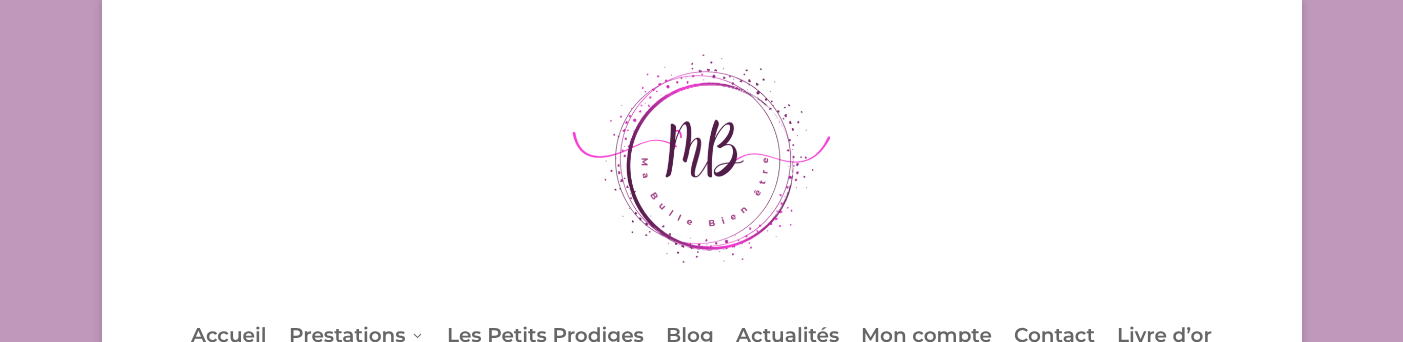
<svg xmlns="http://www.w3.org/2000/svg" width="1403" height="342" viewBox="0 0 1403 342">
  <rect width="100%" height="100%" fill="rgb(192,152,188)"/>
  <rect x="102" y="0" width="1200" height="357" fill="rgba(0,0,0,0.2)" filter="blur(5px)"/>
  <rect x="102" y="0" width="1200" height="342" fill="rgb(255,255,255)"/>
  <image x="572" y="54" width="259" height="209" href="pic1.png"/>
  <g font-family="Montserrat" font-size="20" font-weight="100" fill="rgb(102,102,102)">
    <text x="191" y="342">Accueil</text>
    <text x="289" y="342">Prestations</text>
  </g>
  <image x="413" y="333" width="9" height="5" href="pic2.png"/>
  <g font-family="Montserrat" font-size="20" font-weight="100" fill="rgb(102,102,102)">
    <text x="447" y="342">Les Petits Prodiges</text>
    <text x="666" y="342">Blog</text>
    <text x="736" y="342">Actualités</text>
    <text x="861" y="342">Mon compte</text>
    <text x="1014" y="342">Contact</text>
    <text x="1117" y="342">Livre d’or</text>
  </g>
</svg>
